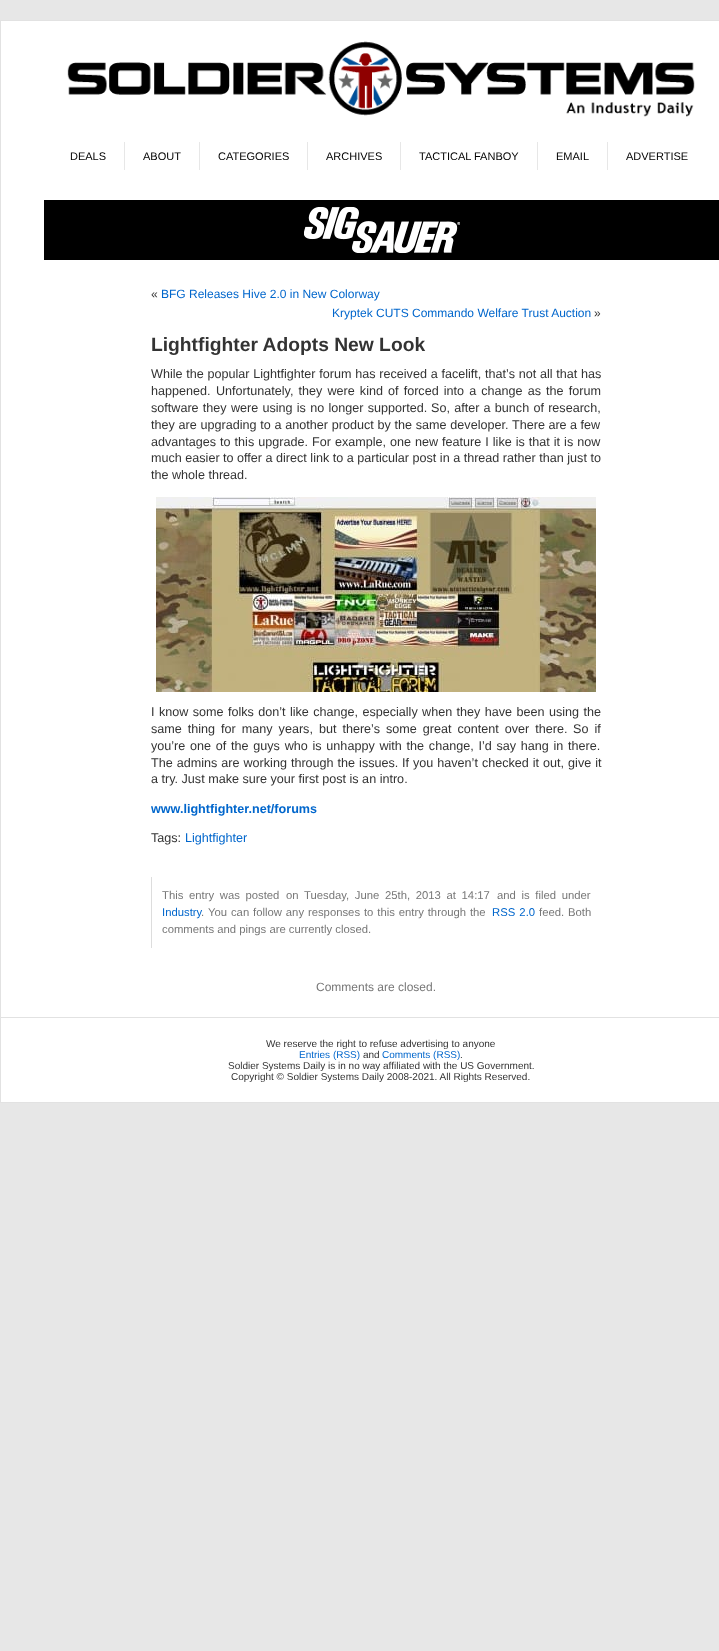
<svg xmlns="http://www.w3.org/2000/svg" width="719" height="1651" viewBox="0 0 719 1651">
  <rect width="100%" height="100%" fill="rgb(231,231,231)"/>
  <rect x="0.5" y="20.5" width="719" height="1082" fill="rgb(255,255,255)" stroke="rgb(226,226,226)"/>
  <image x="67" y="41" width="628" height="76" href="pic1.png"/>
  <text x="70" y="160" font-family="Liberation Sans" font-size="11" fill="rgb(0,0,0)">DEALS</text>
  <rect x="124" y="142" width="1" height="28" fill="rgb(231,231,231)"/>
  <text x="143" y="160" font-family="Liberation Sans" font-size="11" fill="rgb(0,0,0)">ABOUT</text>
  <rect x="199" y="142" width="1" height="28" fill="rgb(231,231,231)"/>
  <text x="218" y="160" font-family="Liberation Sans" font-size="11" fill="rgb(0,0,0)">CATEGORIES</text>
  <rect x="307" y="142" width="1" height="28" fill="rgb(231,231,231)"/>
  <text x="326" y="160" font-family="Liberation Sans" font-size="11" fill="rgb(0,0,0)">ARCHIVES</text>
  <rect x="400" y="142" width="1" height="28" fill="rgb(231,231,231)"/>
  <text x="419" y="160" font-family="Liberation Sans" font-size="11" fill="rgb(0,0,0)">TACTICAL FANBOY</text>
  <rect x="537" y="142" width="1" height="28" fill="rgb(231,231,231)"/>
  <text x="556" y="160" font-family="Liberation Sans" font-size="11" fill="rgb(0,0,0)">EMAIL</text>
  <rect x="607" y="142" width="1" height="28" fill="rgb(231,231,231)"/>
  <text x="626" y="160" font-family="Liberation Sans" font-size="11" fill="rgb(0,0,0)">ADVERTISE</text>
  <image x="44" y="200" width="675" height="60" href="pic2.png"/>
  <text x="151" y="298" font-family="Liberation Sans" font-size="12" fill="rgb(51,51,51)">«</text>
  <g font-family="Liberation Sans" font-size="12" fill="rgb(0,102,204)">
    <text x="161" y="298">BFG Releases Hive 2.0 in New Colorway</text>
    <text x="332" y="317">Kryptek CUTS Commando Welfare Trust Auction</text>
  </g>
  <text x="594" y="317" font-family="Liberation Sans" font-size="12" fill="rgb(51,51,51)">»</text>
  <text x="151" y="351" font-family="Liberation Sans" font-size="19.25" font-weight="bold" fill="rgb(51,51,51)">Lightfighter Adopts New Look</text>
  <g font-family="Liberation Sans" font-size="12.6" fill="rgb(51,51,51)">
    <text>
      <tspan x="151" y="378" word-spacing="0.25">While the popular Lightfighter forum has received a facelift, that’s not all that has</tspan>
      <tspan x="151" y="395">happened.</tspan>
    </text>
    <text x="216" y="395" word-spacing="1.6">Unfortunately, they were kind of forced into a change as the forum</text>
    <text x="151" y="412" word-spacing="0.75">software they were using is no longer supported.</text>
    <text x="431" y="412" word-spacing="0.75">So, after a bunch of research,</text>
    <text x="151" y="429" word-spacing="0.25">they are upgrading to a another product by the same developer.</text>
    <text x="512" y="429">There are a few</text>
    <text x="151" y="446" word-spacing="0.5">advantages to this upgrade.</text>
    <text x="312" y="446" word-spacing="0.5">For example, one new feature I like is that it is now</text>
    <text>
      <tspan x="151" y="462">much easier to offer a direct link to a particular post in a thread rather than just to</tspan>
      <tspan x="151" y="479">the whole thread.</tspan>
    </text>
  </g>
  <image x="156" y="497" width="440" height="195" href="pic3.png"/>
  <g font-family="Liberation Sans" font-size="12.6" fill="rgb(51,51,51)">
    <text>
      <tspan x="151" y="716" word-spacing="0.9">I know some folks don’t like change, especially when they have been using the</tspan>
      <tspan x="151" y="733" word-spacing="2.5">same thing for many years, but there’s some great content over there.</tspan>
    </text>
    <text x="573" y="733" word-spacing="2.5">So if</text>
    <text>
      <tspan x="151" y="750" word-spacing="1.25">you’re one of the guys who is unhappy with the change, I’d say hang in there.</tspan>
      <tspan x="151" y="767" word-spacing="0.5">The admins are working through the issues.</tspan>
    </text>
    <text x="402" y="767" word-spacing="0.5">If you haven’t checked it out, give it</text>
    <text x="151" y="783">a try. Just make sure your first post is an intro.</text>
  </g>
  <text x="151" y="813" font-family="Liberation Sans" font-size="12.6" font-weight="bold" fill="rgb(0,102,204)">www.lightfighter.net/forums</text>
  <text x="151" y="842" font-family="Liberation Sans" font-size="12.6" fill="rgb(51,51,51)">Tags:</text>
  <text x="185" y="842" font-family="Liberation Sans" font-size="12.6" fill="rgb(0,102,204)">Lightfighter</text>
  <rect x="151" y="877" width="1" height="71" fill="rgb(221,221,221)"/>
  <g font-family="Liberation Sans" font-size="11.3" fill="rgb(119,119,119)">
    <text x="162" y="899" word-spacing="2.5">This entry was posted</text>
    <text x="286" y="899" word-spacing="2.5">on Tuesday, June 25th, 2013 at 14:17</text>
    <text x="497" y="899" word-spacing="2.5">and is filed under</text>
  </g>
  <text x="162" y="916" font-family="Liberation Sans" font-size="11.3" fill="rgb(0,102,204)">Industry</text>
  <text x="208" y="916" word-spacing="0.75" font-family="Liberation Sans" font-size="11.3" fill="rgb(119,119,119)">You can follow any responses to this entry through the</text>
  <text x="492" y="916" word-spacing="1" font-family="Liberation Sans" font-size="11.3" fill="rgb(0,102,204)">RSS 2.0</text>
  <g font-family="Liberation Sans" font-size="11.3" fill="rgb(119,119,119)">
    <text x="539" y="916">feed.</text>
    <text x="568" y="916">Both</text>
    <text x="201" y="916">.</text>
    <text x="162" y="933">comments and pings are currently closed.</text>
  </g>
  <text x="316" y="991" font-family="Liberation Sans" font-size="12" fill="rgb(119,119,119)">Comments are closed.</text>
  <rect x="1" y="1017" width="718" height="1" fill="rgb(226,226,226)"/>
  <text x="266" y="1047" font-family="Liberation Sans" font-size="10" fill="rgb(51,51,51)">We reserve the right to refuse advertising to anyone</text>
  <text x="299" y="1058" font-family="Liberation Sans" font-size="10" fill="rgb(0,102,204)">Entries (RSS)</text>
  <text x="363" y="1058" font-family="Liberation Sans" font-size="10" fill="rgb(51,51,51)">and</text>
  <text x="382" y="1058" font-family="Liberation Sans" font-size="10" fill="rgb(0,102,204)">Comments (RSS)</text>
  <g font-family="Liberation Sans" font-size="10" fill="rgb(51,51,51)">
    <text x="460" y="1058">.</text>
    <text x="228" y="1069">Soldier Systems Daily is in no way affiliated with the US Government.</text>
    <text x="231" y="1080">Copyright © Soldier Systems Daily 2008-2021. All Rights Reserved.</text>
  </g>
</svg>
